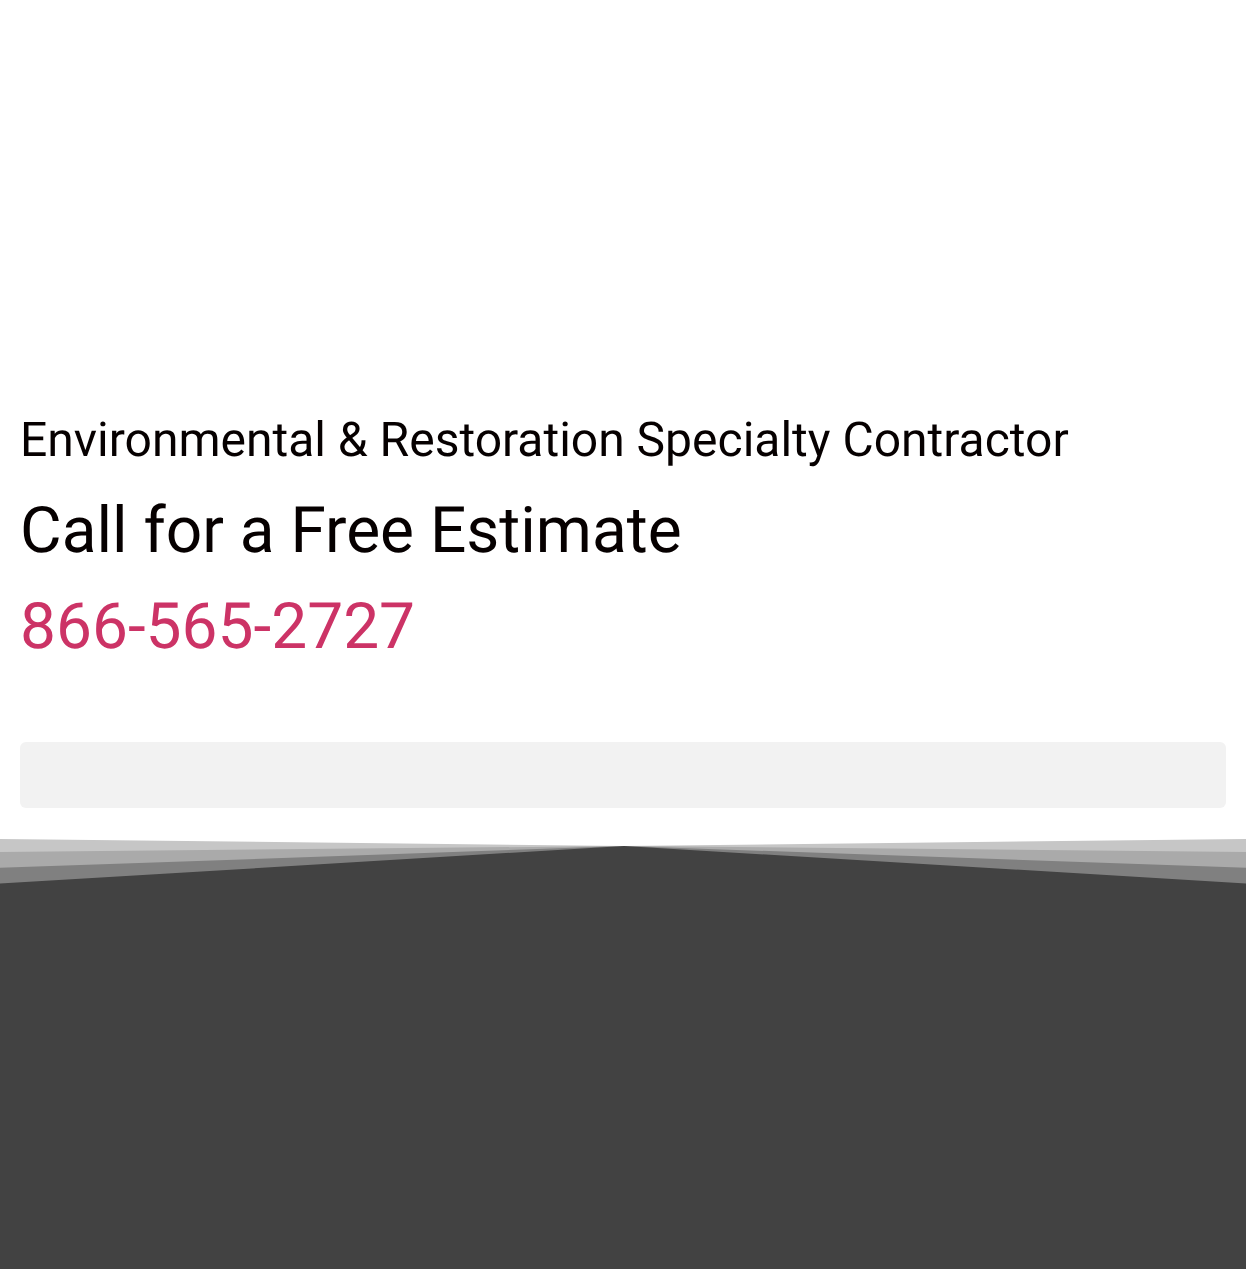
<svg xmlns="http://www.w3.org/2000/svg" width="1246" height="1269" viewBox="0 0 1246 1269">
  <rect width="100%" height="100%" fill="rgb(255,255,255)"/>
  <text x="20" y="456" font-family="Roboto" font-size="48" fill="rgb(6,0,0)">Environmental &amp; Restoration Specialty Contractor</text>
  <text x="20" y="552" font-family="Roboto" font-size="64" fill="rgb(6,0,0)">Call for a Free Estimate</text>
  <text x="20" y="648" font-family="Roboto" font-size="64" fill="rgb(204,51,102)">866-565-2727</text>
  <rect x="20" y="742" width="1206" height="66" rx="6" fill="rgb(242,242,242)"/>
  <rect x="0" y="838" width="1246" height="431" fill="rgb(66,66,66)"/>
  <path d="M-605 826V920L624 846L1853 920V826Z" fill="rgba(255,255,255,0.33)"/>
  <path d="M-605 826V889L624 846L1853 889V826Z" fill="rgba(255,255,255,0.33)"/>
  <path d="M-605 826V858L624 846L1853 858V826Z" fill="rgba(255,255,255,0.33)"/>
  <path d="M-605 826V832L624 846L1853 832V826Z" fill="rgb(255,255,255)"/>
</svg>
